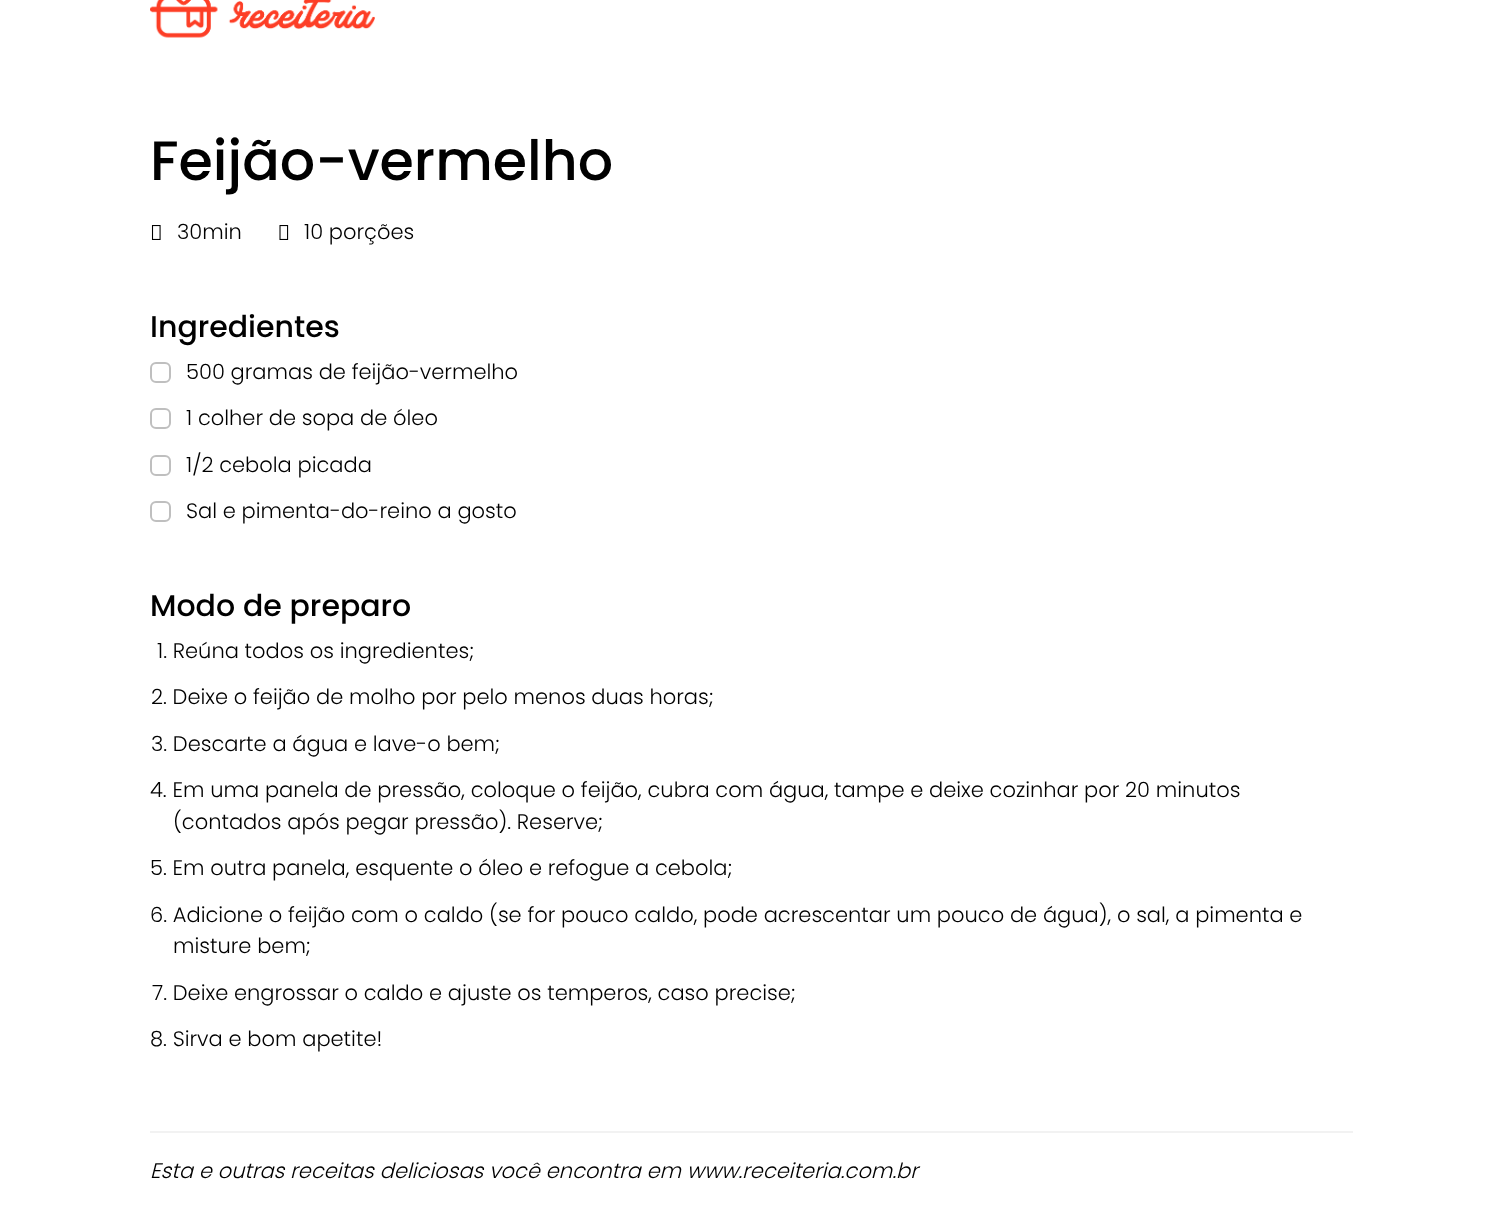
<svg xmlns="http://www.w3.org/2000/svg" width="1503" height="1211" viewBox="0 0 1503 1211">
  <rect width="100%" height="100%" fill="rgb(255,255,255)"/>
  <image x="150" y="0" width="225" height="38" href="pic1.png"/>
  <text x="150" y="180" font-family="Poppins" font-size="55.5" font-weight="500" fill="rgb(0,0,0)">Feijão-vermelho</text>
  <image x="151" y="225" width="10" height="15" href="pic2.png"/>
  <text x="177" y="239" font-family="Poppins" font-size="21" font-weight="300" fill="rgb(0,0,0)">30min</text>
  <image x="279" y="225" width="10" height="15" href="pic3.png"/>
  <text x="304" y="239" font-family="Poppins" font-size="21" font-weight="300" fill="rgb(0,0,0)">10 porções</text>
  <text x="150" y="337" font-family="Poppins" font-size="30" font-weight="500" fill="rgb(0,0,0)">Ingredientes</text>
  <rect x="151" y="363" width="19" height="19" rx="5" fill="none" stroke="rgb(191,191,191)" stroke-width="2"/>
  <text x="186" y="379" font-family="Poppins" font-size="21" font-weight="300" fill="rgb(0,0,0)">500 gramas de feijão-vermelho</text>
  <rect x="151" y="409" width="19" height="19" rx="5" fill="none" stroke="rgb(191,191,191)" stroke-width="2"/>
  <text x="186" y="425" font-family="Poppins" font-size="21" font-weight="300" fill="rgb(0,0,0)">1 colher de sopa de óleo</text>
  <rect x="151" y="456" width="19" height="19" rx="5" fill="none" stroke="rgb(191,191,191)" stroke-width="2"/>
  <text x="186" y="472" font-family="Poppins" font-size="21" font-weight="300" fill="rgb(0,0,0)">1/2 cebola picada</text>
  <rect x="151" y="502" width="19" height="19" rx="5" fill="none" stroke="rgb(191,191,191)" stroke-width="2"/>
  <text x="186" y="518" font-family="Poppins" font-size="21" font-weight="300" fill="rgb(0,0,0)">Sal e pimenta-do-reino a gosto</text>
  <text x="150" y="616" font-family="Poppins" font-size="30" font-weight="500" fill="rgb(0,0,0)">Modo de preparo</text>
  <g font-family="Poppins" font-size="21" font-weight="300" fill="rgb(0,0,0)">
    <text x="157" y="658">1. Reúna todos os ingredientes;</text>
    <text x="151" y="704">2. Deixe o feijão de molho por pelo menos duas horas;</text>
    <text x="151" y="751">3. Descarte a água e lave-o bem;</text>
    <text x="150" y="797">4. Em uma panela de pressão, coloque o feijão, cubra com água, tampe e deixe cozinhar por 20 minutos</text>
    <text x="173" y="829">(contados após pegar pressão). Reserve;</text>
    <text x="150" y="875">5. Em outra panela, esquente o óleo e refogue a cebola;</text>
    <text x="150" y="922">6. Adicione o feijão com o caldo (se for pouco caldo, pode acrescentar um pouco de água), o sal, a pimenta e</text>
    <text x="173" y="953">misture bem;</text>
    <text x="152" y="1000">7. Deixe engrossar o caldo e ajuste os temperos, caso precise;</text>
    <text x="150" y="1046">8. Sirva e bom apetite!</text>
  </g>
  <rect x="150" y="1131" width="1203" height="2" fill="rgb(242,242,242)"/>
  <text x="150" y="1178" font-family="Poppins" font-size="21" font-weight="300" font-style="italic" fill="rgb(0,0,0)">Esta e outras receitas deliciosas você encontra em www.receiteria.com.br</text>
</svg>
